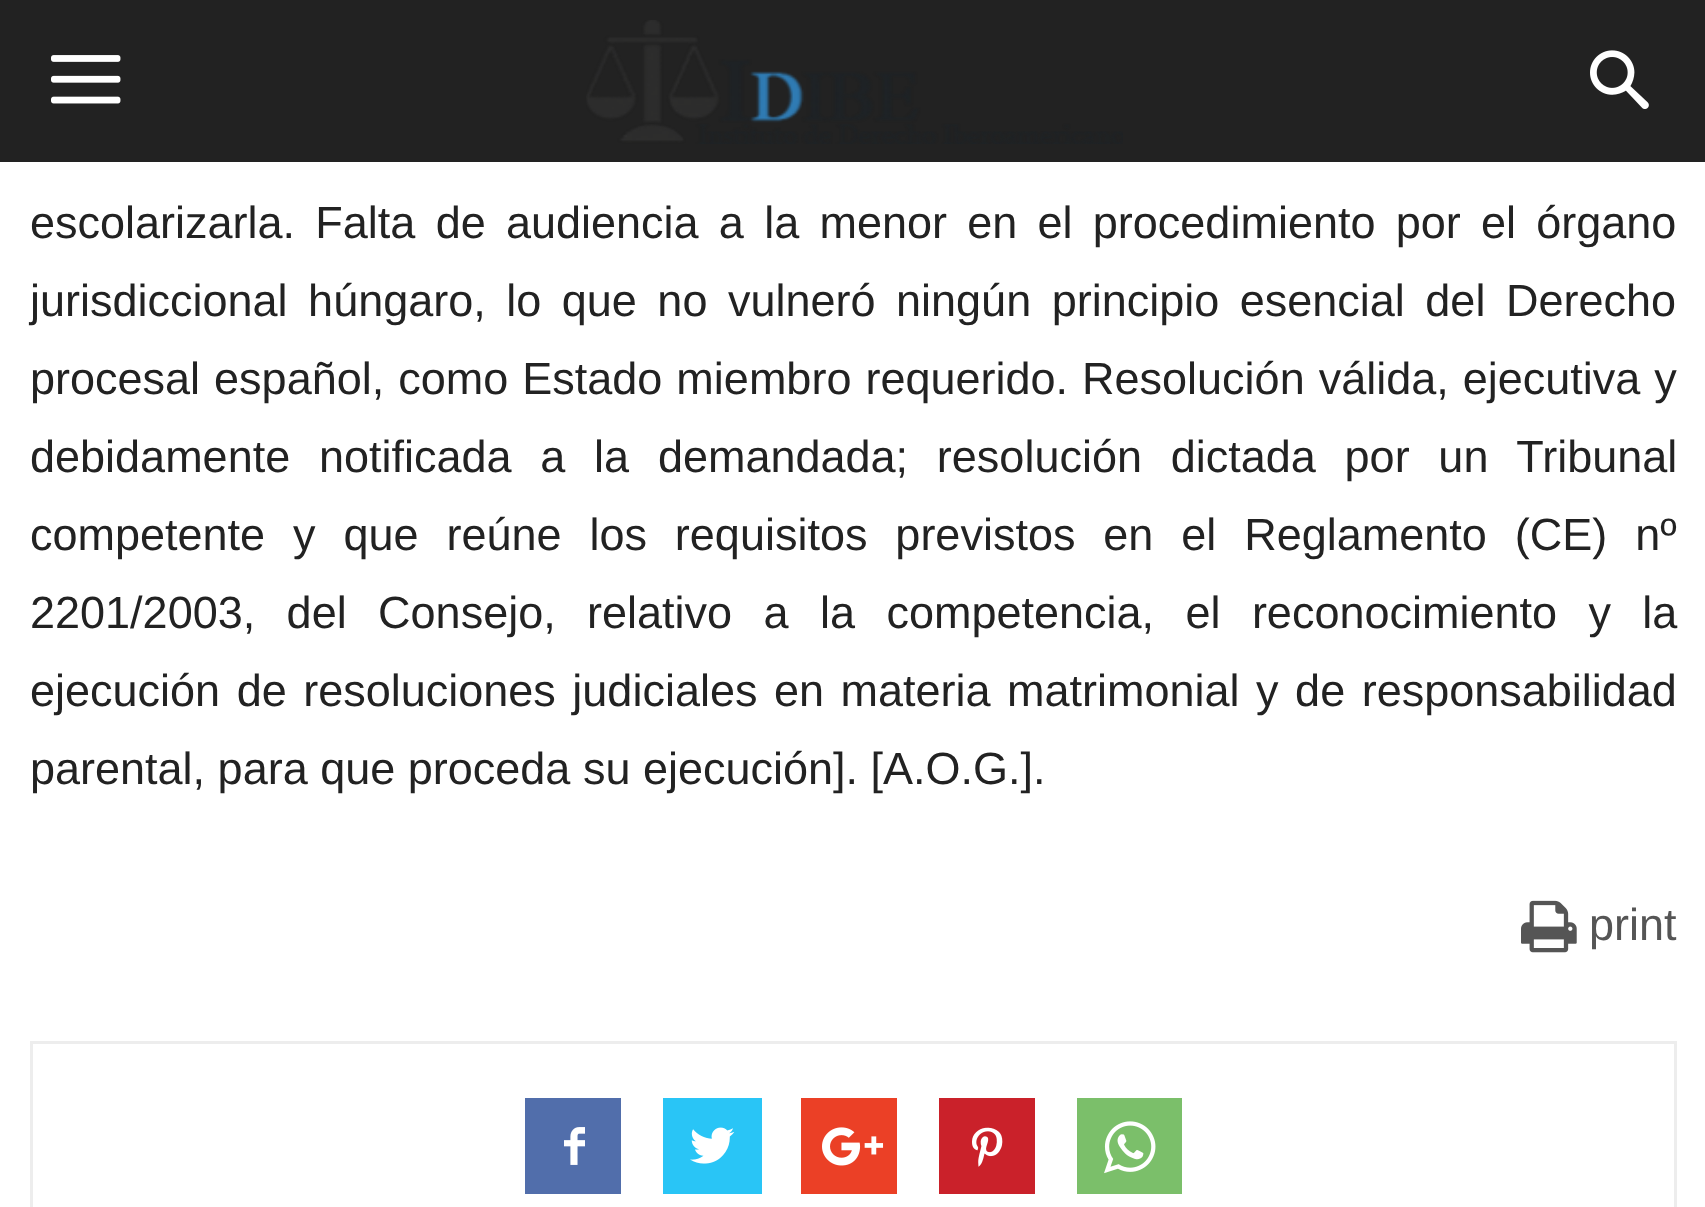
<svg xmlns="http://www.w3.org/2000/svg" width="1705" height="1207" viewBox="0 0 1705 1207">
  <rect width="100%" height="100%" fill="rgb(255,255,255)"/>
  <rect x="0" y="0" width="1705" height="162" fill="rgb(34,34,34)"/>
  <image x="51" y="55" width="70" height="49" href="pic1.png"/>
  <image x="586" y="20" width="537" height="124" href="pic2.png"/>
  <image x="1590" y="50" width="59" height="59" href="pic3.png"/>
  <g font-family="Liberation Sans" font-size="45" fill="rgb(34,34,34)">
    <text>
      <tspan x="30" y="238" word-spacing="7.75">escolarizarla. Falta de audiencia a la menor en el procedimiento por el órgano</tspan>
      <tspan x="30" y="316" word-spacing="8">jurisdiccional húngaro, lo que no vulneró ningún principio esencial del Derecho</tspan>
      <tspan x="30" y="394" word-spacing="1.5">procesal español, como Estado miembro requerido. Resolución válida, ejecutiva y</tspan>
      <tspan x="30" y="472" word-spacing="16.25">debidamente notificada a la demandada; resolución dictada por un Tribunal</tspan>
      <tspan x="30" y="550" word-spacing="15.4">competente y que reúne los requisitos previstos en el Reglamento (CE) nº</tspan>
      <tspan x="30" y="628" word-spacing="18.9">2201/2003, del Consejo, relativo a la competencia, el reconocimiento y la</tspan>
      <tspan x="30" y="706" word-spacing="4">ejecución de resoluciones judiciales en materia matrimonial y de responsabilidad</tspan>
      <tspan x="30" y="784">parental, para que proceda su ejecución]. [A.O.G.].</tspan>
    </text>
  </g>
  <image x="1521" y="900" width="56" height="53" href="pic4.png"/>
  <text x="1589" y="940" font-family="Liberation Sans" font-size="45" fill="rgb(85,85,85)">print</text>
  <rect x="31.5" y="1042.5" width="1644" height="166" fill="none" stroke="rgb(237,237,237)" stroke-width="3"/>
  <rect x="525" y="1098" width="96" height="96" fill="rgb(81,110,171)"/>
  <image x="564" y="1127" width="21" height="38" href="pic5.png"/>
  <rect x="663" y="1098" width="99" height="96" fill="rgb(41,197,246)"/>
  <image x="690" y="1127" width="45" height="37" href="pic6.png"/>
  <rect x="801" y="1098" width="96" height="96" fill="rgb(235,64,38)"/>
  <image x="822" y="1127" width="62" height="39" href="pic7.png"/>
  <rect x="939" y="1098" width="96" height="96" fill="rgb(202,33,42)"/>
  <image x="972" y="1127" width="31" height="40" href="pic8.png"/>
  <rect x="1077" y="1098" width="105" height="96" fill="rgb(123,191,106)"/>
  <image x="1104" y="1121" width="52" height="53" href="pic9.png"/>
</svg>
